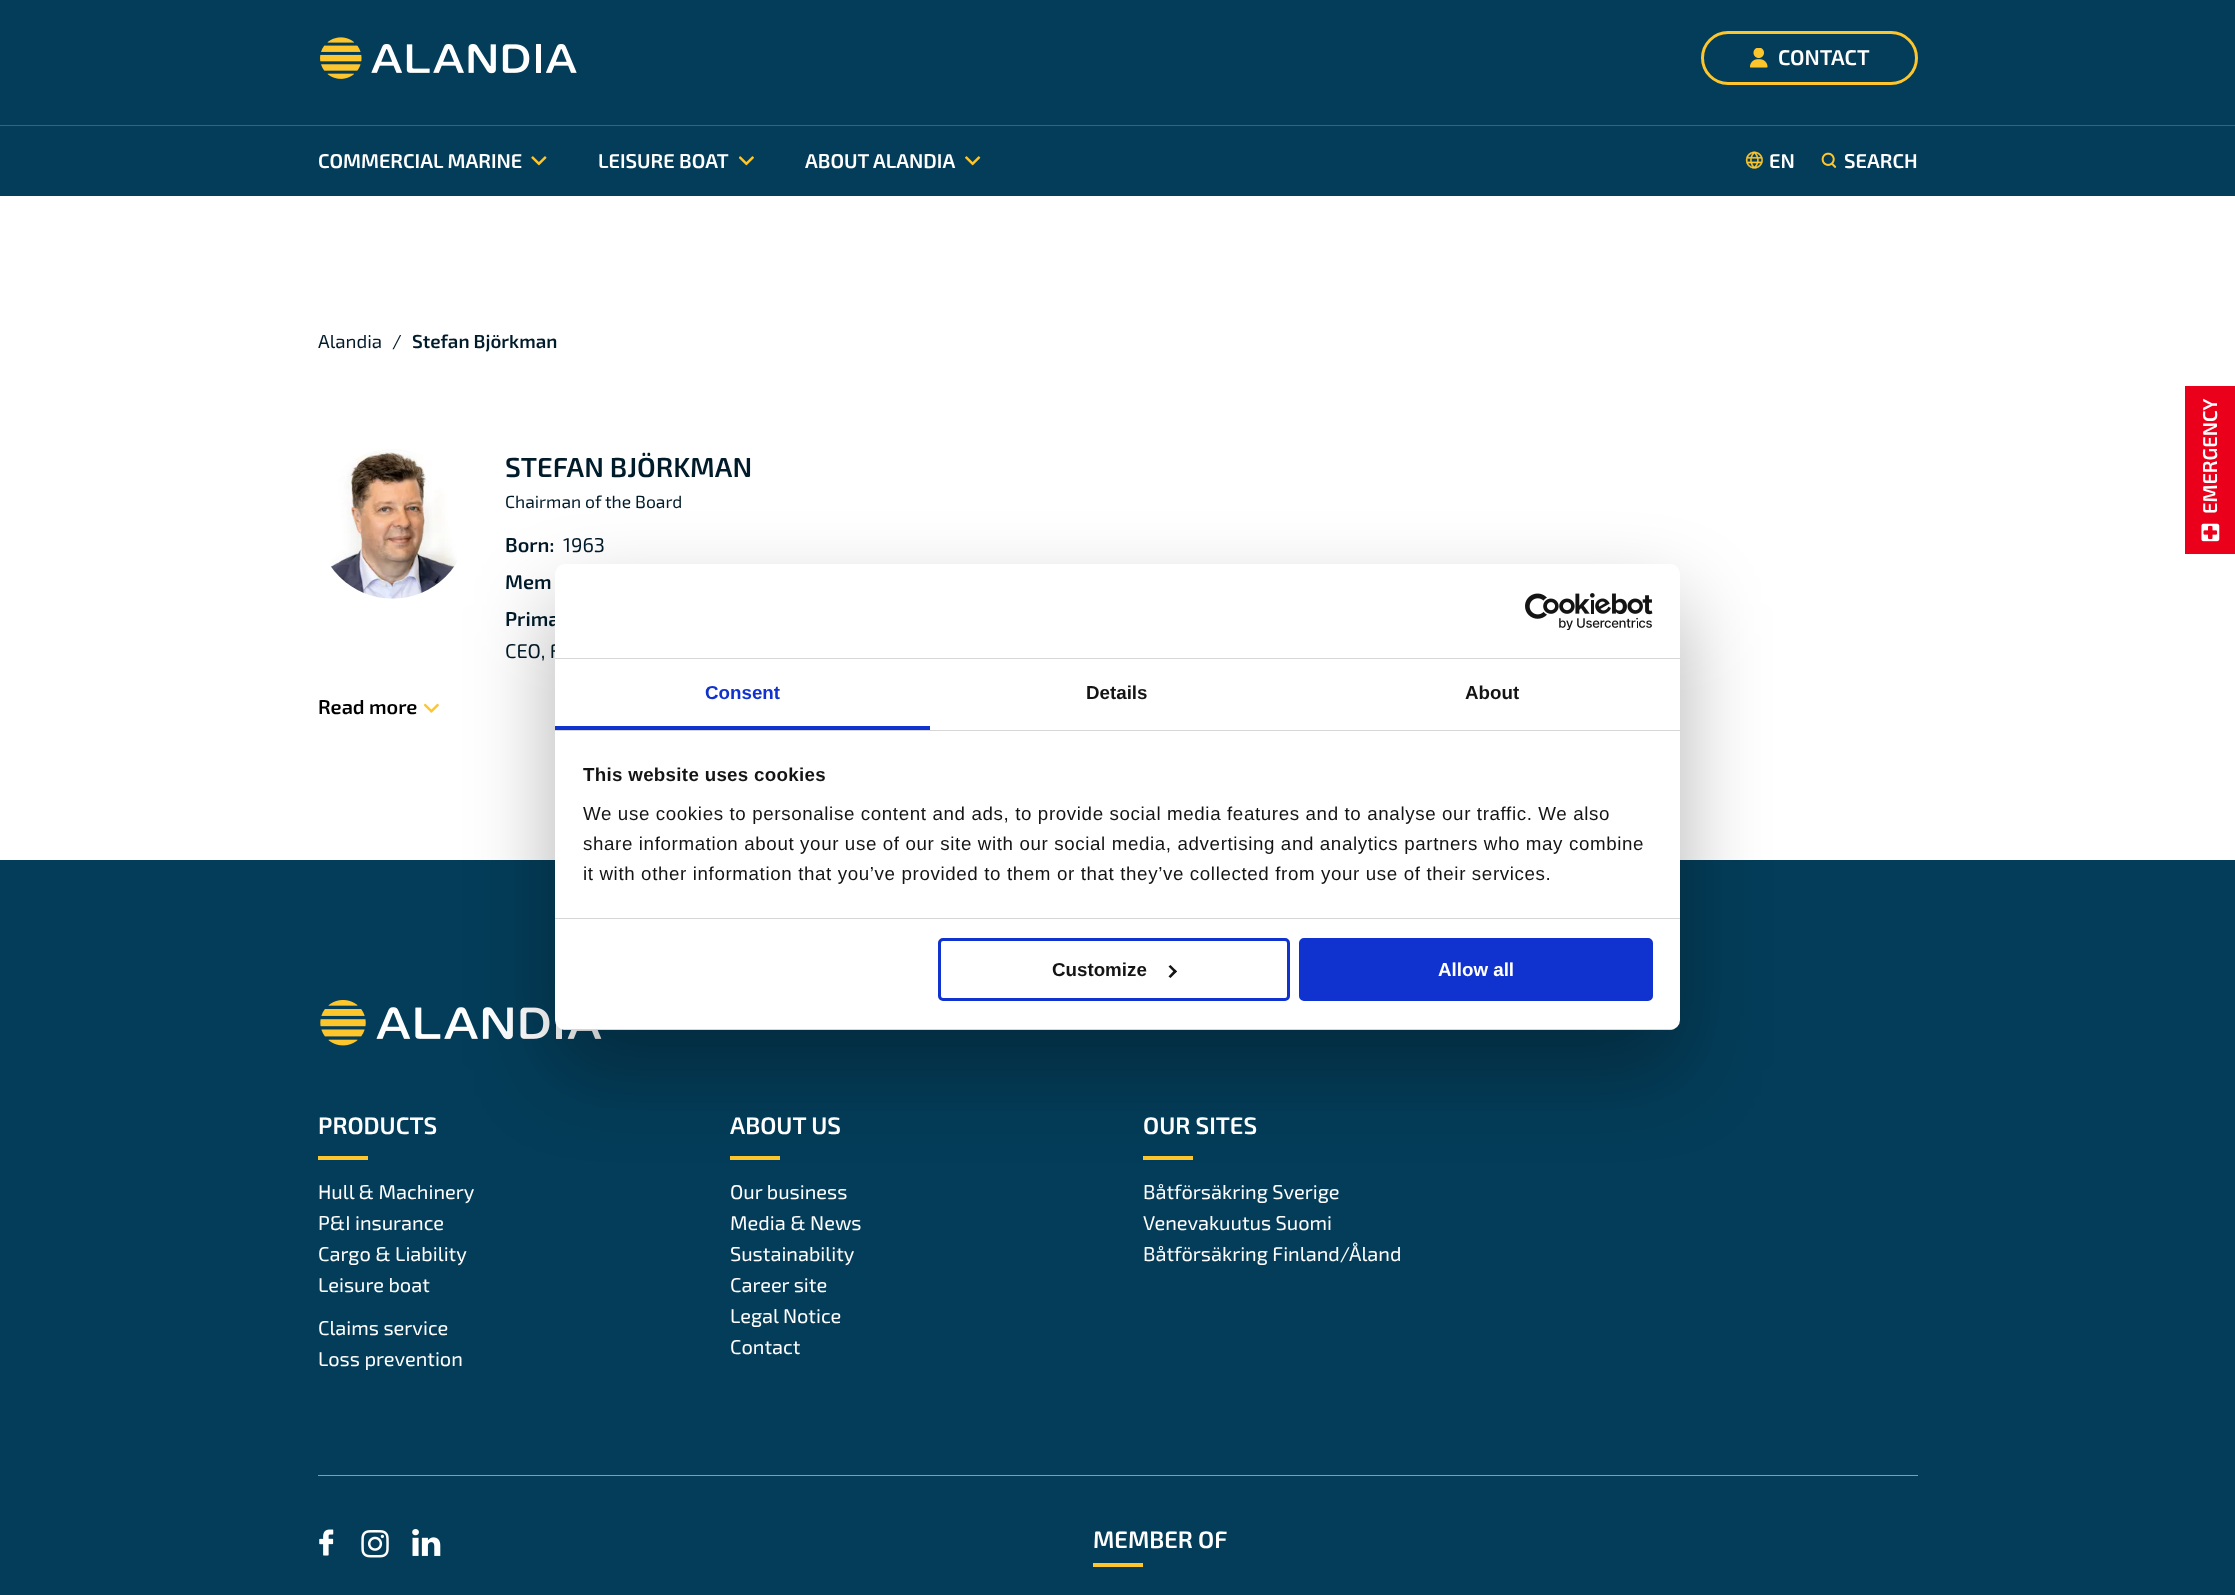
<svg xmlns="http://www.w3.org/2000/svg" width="2235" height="1595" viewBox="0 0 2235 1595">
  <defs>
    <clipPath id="clip1"><rect x="555" y="564" width="1125" height="466" rx="10"/></clipPath>
  </defs>
  <rect width="100%" height="100%" fill="rgb(255,255,255)"/>
  <rect x="0" y="0" width="2235" height="125" fill="rgb(4,61,89)"/>
  <image x="320" y="37" width="257" height="42" href="pic1.png"/>
  <rect x="1702.5" y="32.5" width="214" height="51" rx="25.5" fill="none" stroke="rgb(253,198,45)" stroke-width="3"/>
  <image x="1750" y="48" width="18" height="20" href="pic2.png"/>
  <text x="1778" y="65" font-family="'Exo 2'" font-size="21.25" font-weight="600" fill="rgb(255,255,255)">CONTACT</text>
  <rect x="0" y="126" width="2235" height="70" fill="rgb(4,61,89)"/>
  <rect x="0" y="125" width="2235" height="1" fill="rgb(54,100,122)"/>
  <text x="318" y="168" font-family="'Exo 2'" font-size="20" font-weight="600" fill="rgb(255,255,255)">COMMERCIAL MARINE</text>
  <image x="531" y="156" width="16" height="10" href="pic3.png"/>
  <text x="598" y="168" font-family="'Exo 2'" font-size="20" font-weight="600" fill="rgb(255,255,255)">LEISURE BOAT</text>
  <image x="739" y="156" width="15" height="10" href="pic4.png"/>
  <text x="805" y="168" font-family="'Exo 2'" font-size="20" font-weight="600" fill="rgb(255,255,255)">ABOUT ALANDIA</text>
  <image x="965" y="156" width="16" height="10" href="pic5.png"/>
  <image x="1745" y="151" width="18" height="18" href="pic6.png"/>
  <text x="1769" y="168" font-family="'Exo 2'" font-size="20" font-weight="600" fill="rgb(255,255,255)">EN</text>
  <image x="1821" y="152" width="16" height="16" href="pic7.png"/>
  <text x="1844" y="168" font-family="'Exo 2'" font-size="20" font-weight="600" fill="rgb(255,255,255)">SEARCH</text>
  <g font-family="'Exo 2'" font-size="18.75" fill="rgb(0,27,42)">
    <text x="318" y="348">Alandia</text>
    <text x="392" y="348">/</text>
  </g>
  <text x="412" y="348" font-family="'Exo 2'" font-size="18.75" font-weight="600" fill="rgb(0,27,42)">Stefan Björkman</text>
  <image x="330" y="449" width="127" height="150" href="pic8.png"/>
  <text x="505" y="477" font-family="'Exo 2'" font-size="27.5" font-weight="600" fill="rgb(0,27,42)">STEFAN BJÖRKMAN</text>
  <text x="505" y="508" font-family="'Exo 2'" font-size="17.5" fill="rgb(0,27,42)">Chairman of the Board</text>
  <text x="505" y="552" font-family="'Exo 2'" font-size="20" font-weight="600" fill="rgb(0,27,42)">Born:</text>
  <text x="563" y="552" font-family="'Exo 2'" font-size="20" fill="rgb(0,27,42)">1963</text>
  <g font-family="'Exo 2'" font-size="20" font-weight="600" fill="rgb(0,27,42)">
    <text>
      <tspan x="505" y="589">Mem</tspan>
      <tspan x="505" y="626">Prima</tspan>
    </text>
  </g>
  <text x="505" y="658" font-family="'Exo 2'" font-size="20" fill="rgb(0,27,42)">CEO, F</text>
  <text x="318" y="714" font-family="'Exo 2'" font-size="20" font-weight="600" fill="rgb(0,0,0)">Read more</text>
  <image x="424" y="703" width="15" height="10" href="pic9.png"/>
  <rect x="2185" y="386" width="50" height="168" fill="rgb(235,0,27)"/>
  <text x="2217" y="514" transform="rotate(-90 2217 514)" font-family="'Exo 2'" font-size="20" font-weight="600" fill="rgb(255,255,255)">EMERGENCY</text>
  <image x="2201" y="523" width="19" height="19" href="pic10.png"/>
  <rect x="0" y="860" width="2235" height="735" fill="rgb(4,61,89)"/>
  <image x="320" y="1000" width="282" height="46" href="pic12.png"/>
  <rect x="730" y="1156" width="50" height="4" fill="rgb(253,198,45)"/>
  <rect x="1143" y="1156" width="50" height="4" fill="rgb(253,198,45)"/>
  <rect x="555" y="604" width="1125" height="466" rx="10" fill="rgba(0,0,0,0.3)" filter="blur(42.5px)"/>
  <rect x="555" y="564" width="1125" height="466" rx="10" fill="rgb(255,255,255)"/>
  <rect x="555" y="658" width="1125" height="1" fill="rgb(214,214,214)"/>
  <image x="1525" y="593" width="128" height="37" href="pic11.png"/>
  <rect x="555" y="730" width="1125" height="1" fill="rgb(214,214,214)"/>
  <rect x="555" y="726" width="375" height="4" fill="rgb(16,50,207)"/>
  <text x="705" y="699" font-family="Liberation Sans" font-size="18.75" font-weight="bold" fill="rgb(16,50,207)">Consent</text>
  <g font-family="Liberation Sans" font-size="18.75" font-weight="bold" fill="rgb(20,20,20)">
    <text x="1086" y="699">Details</text>
    <text x="1465" y="699">About</text>
  </g>
  <rect x="555" y="918" width="1125" height="1" fill="rgb(214,214,214)"/>
  <text x="583" y="781" font-family="Liberation Sans" font-size="18.75" font-weight="bold" letter-spacing="0.3" fill="rgb(20,20,20)">This website uses cookies</text>
  <g font-family="Liberation Sans" font-size="18.75" letter-spacing="0.62" fill="rgb(20,20,20)">
    <text>
      <tspan x="583" y="820">We use cookies to personalise content and ads, to provide social media features and to analyse our traffic. We also</tspan>
      <tspan x="583" y="850">share information about your use of our site with our social media, advertising and analytics partners who may combine</tspan>
      <tspan x="583" y="880">it with other information that you’ve provided to them or that they’ve collected from your use of their services.</tspan>
    </text>
  </g>
  <g clip-path="url(#clip1)">
    <rect x="555" y="1029" width="1125" height="1" fill="rgb(214,214,214)"/>
  </g>
  <rect x="939.5" y="939.5" width="349" height="60" rx="3.5" fill="none" stroke="rgb(16,50,207)" stroke-width="3"/>
  <text x="1052" y="976" font-family="Liberation Sans" font-size="18.75" font-weight="bold" fill="rgb(20,20,20)">Customize</text>
  <path d="M1170.5 965L1177 971.5L1175 973L1168.5 966.5Z" fill="rgb(20,20,20)"/>
  <path d="M1175 969.5L1177 971.5L1170.5 978L1168.5 976.5Z" fill="rgb(20,20,20)"/>
  <rect x="1300.5" y="939.5" width="351" height="60" rx="3.5" fill="rgb(16,50,207)" stroke="rgb(16,50,207)" stroke-width="3"/>
  <text x="1438" y="976" font-family="Liberation Sans" font-size="18.75" font-weight="bold" fill="rgb(255,255,255)">Allow all</text>
  <text x="318" y="1134" font-family="'Exo 2'" font-size="23.75" font-weight="600" fill="rgb(255,255,255)">PRODUCTS</text>
  <rect x="318" y="1156" width="50" height="4" fill="rgb(253,198,45)"/>
  <g font-family="'Exo 2'" font-size="20" fill="rgb(255,255,255)">
    <text>
      <tspan x="318" y="1199">Hull &amp; Machinery</tspan>
      <tspan x="318" y="1230">P&amp;I insurance</tspan>
      <tspan x="318" y="1261">Cargo &amp; Liability</tspan>
      <tspan x="318" y="1292">Leisure boat</tspan>
    </text>
    <text>
      <tspan x="318" y="1335">Claims service</tspan>
      <tspan x="318" y="1366">Loss prevention</tspan>
    </text>
  </g>
  <text x="730" y="1134" font-family="'Exo 2'" font-size="23.75" font-weight="600" fill="rgb(255,255,255)">ABOUT US</text>
  <g font-family="'Exo 2'" font-size="20" fill="rgb(255,255,255)">
    <text>
      <tspan x="730" y="1199">Our business</tspan>
      <tspan x="730" y="1230">Media &amp; News</tspan>
      <tspan x="730" y="1261">Sustainability</tspan>
      <tspan x="730" y="1292">Career site</tspan>
      <tspan x="730" y="1323">Legal Notice</tspan>
      <tspan x="730" y="1354">Contact</tspan>
    </text>
  </g>
  <text x="1143" y="1134" font-family="'Exo 2'" font-size="23.75" font-weight="600" fill="rgb(255,255,255)">OUR SITES</text>
  <g font-family="'Exo 2'" font-size="20" fill="rgb(255,255,255)">
    <text>
      <tspan x="1143" y="1199">Båtförsäkring Sverige</tspan>
      <tspan x="1143" y="1230">Venevakuutus Suomi</tspan>
      <tspan x="1143" y="1261">Båtförsäkring Finland/Åland</tspan>
    </text>
  </g>
  <rect x="318" y="1475" width="1600" height="1" fill="rgb(130,158,172)"/>
  <image x="319" y="1529" width="15" height="27" href="pic13.png"/>
  <image x="361" y="1530" width="28" height="28" href="pic14.png"/>
  <image x="412" y="1529" width="29" height="27" href="pic15.png"/>
  <text x="1093" y="1548" font-family="'Exo 2'" font-size="23.75" font-weight="600" fill="rgb(255,255,255)">MEMBER OF</text>
  <rect x="1093" y="1563" width="50" height="4" fill="rgb(253,198,45)"/>
</svg>
